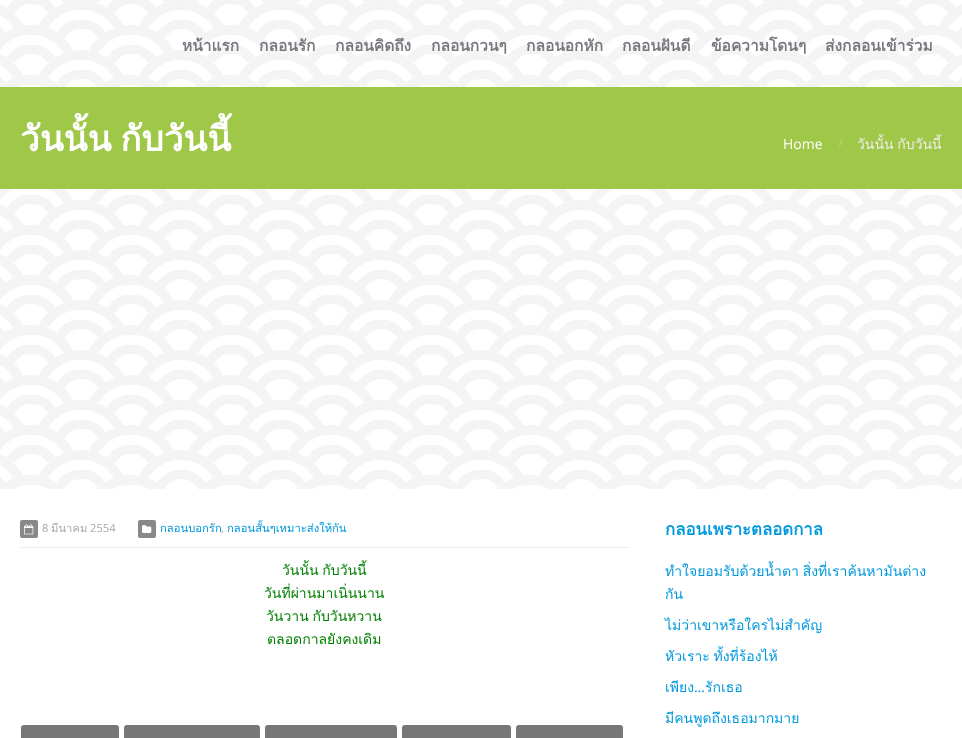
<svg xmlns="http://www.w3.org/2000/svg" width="962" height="738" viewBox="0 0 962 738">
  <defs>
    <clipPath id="clip1"><rect x="665" y="519" width="277" height="218"/></clipPath>
  </defs>
  <rect width="100%" height="100%" fill="rgb(255,255,255)"/>
  <image x="0" y="0" width="962" height="489" href="pic1.png"/>
  <g font-family="Loma" font-size="15.5" font-weight="bold" fill="rgb(119,119,127)">
    <text x="182" y="51">หน้าแรก</text>
    <text x="259" y="51">กลอนรัก</text>
    <text x="335" y="51">กลอนคิดถึง</text>
    <text x="431" y="51">กลอนกวนๆ</text>
    <text x="526" y="51">กลอนอกหัก</text>
    <text x="622" y="51">กลอนฝันดี</text>
    <text x="711" y="51">ข้อความโดนๆ</text>
    <text x="825" y="51">ส่งกลอนเข้าร่วม</text>
  </g>
  <rect x="0" y="87" width="962" height="102" fill="rgb(159,199,72)"/>
  <text x="20" y="151" word-spacing="-3" font-family="Loma" font-size="35" font-weight="bold" fill="rgb(255,255,255)">วันนั้น กับวันนี้</text>
  <text x="783" y="149" font-family="Open Sans" font-size="14" fill="rgb(255,255,255)">Home</text>
  <text x="839" y="147" font-family="Liberation Serif" font-size="12" font-weight="bold" fill="rgb(190,210,147)">/</text>
  <text x="857" y="149" word-spacing="-1" font-family="Loma" font-size="14" fill="rgb(238,238,238)">วันนั้น กับวันนี้</text>
  <rect x="20" y="547" width="609" height="1" fill="rgb(238,238,238)"/>
  <rect x="20" y="520" width="18" height="18" rx="2" fill="rgb(136,136,136)"/>
  <image x="24" y="524" width="10" height="11" href="pic2.png"/>
  <text x="42" y="532" font-family="Open Sans" font-size="11.25" fill="rgb(170,170,170)">8</text>
  <text x="51" y="532" font-family="Loma" font-size="11.25" fill="rgb(170,170,170)">มีนาคม</text>
  <text x="90" y="532" font-family="Open Sans" font-size="11.25" fill="rgb(170,170,170)">2554</text>
  <rect x="138" y="520" width="18" height="18" rx="2" fill="rgb(136,136,136)"/>
  <image x="142" y="525" width="10" height="8" href="pic3.png"/>
  <text x="160" y="532" font-family="Loma" font-size="11.25" fill="rgb(0,153,221)">กลอนบอกรัก</text>
  <text x="221" y="532" font-family="Open Sans" font-size="11.25" fill="rgb(170,170,170)">,</text>
  <text x="227" y="532" font-family="Loma" font-size="11.25" fill="rgb(0,153,221)">กลอนสั้นๆเหมาะส่งให้กัน</text>
  <g font-family="Loma" font-size="14" fill="rgb(0,128,0)">
    <text x="282" y="575" word-spacing="-1">วันนั้น กับวันนี้</text>
    <text x="264" y="598">วันที่ผ่านมาเนิ่นนาน</text>
    <text x="266" y="621" word-spacing="-1">วันวาน กับวันหวาน</text>
    <text x="267" y="644">ตลอดกาลยังคงเดิม</text>
  </g>
  <rect x="21" y="725" width="98" height="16" rx="3" fill="rgb(119,119,119)"/>
  <rect x="124" y="725" width="136" height="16" rx="3" fill="rgb(119,119,119)"/>
  <rect x="265" y="725" width="132" height="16" rx="3" fill="rgb(119,119,119)"/>
  <rect x="402" y="725" width="109" height="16" rx="3" fill="rgb(119,119,119)"/>
  <rect x="516" y="725" width="107" height="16" rx="3" fill="rgb(119,119,119)"/>
  <text x="665" y="535" font-family="Loma" font-size="16.75" font-weight="bold" fill="rgb(0,153,221)">กลอนเพราะตลอดกาล</text>
  <g clip-path="url(#clip1)">
    <g font-family="Loma" font-size="14" fill="rgb(0,153,221)">
      <text>
        <tspan x="665" y="576" word-spacing="-1">ทำใจยอมรับด้วยน้ำตา สิ่งที่เราค้นหามันต่าง</tspan>
        <tspan x="665" y="599">กัน</tspan>
      </text>
    </g>
  </g>
  <text x="665" y="630" font-family="Loma" font-size="14" fill="rgb(0,153,221)">ไม่ว่าเขาหรือใครไม่สำคัญ</text>
  <g clip-path="url(#clip1)">
    <g font-family="Loma" font-size="14" fill="rgb(0,153,221)">
      <text x="665" y="661" word-spacing="-1">หัวเราะ ทั้งที่ร้องไห้</text>
      <text x="665" y="692">เพียง</text>
    </g>
  </g>
  <text x="694" y="692" font-family="Open Sans" font-size="14" fill="rgb(0,153,221)">…</text>
  <text x="705" y="692" font-family="Loma" font-size="14" fill="rgb(0,153,221)">รักเธอ</text>
  <g clip-path="url(#clip1)">
    <text x="665" y="723" font-family="Loma" font-size="14" fill="rgb(0,153,221)">มีคนพูดถึงเธอมากมาย</text>
  </g>
</svg>
